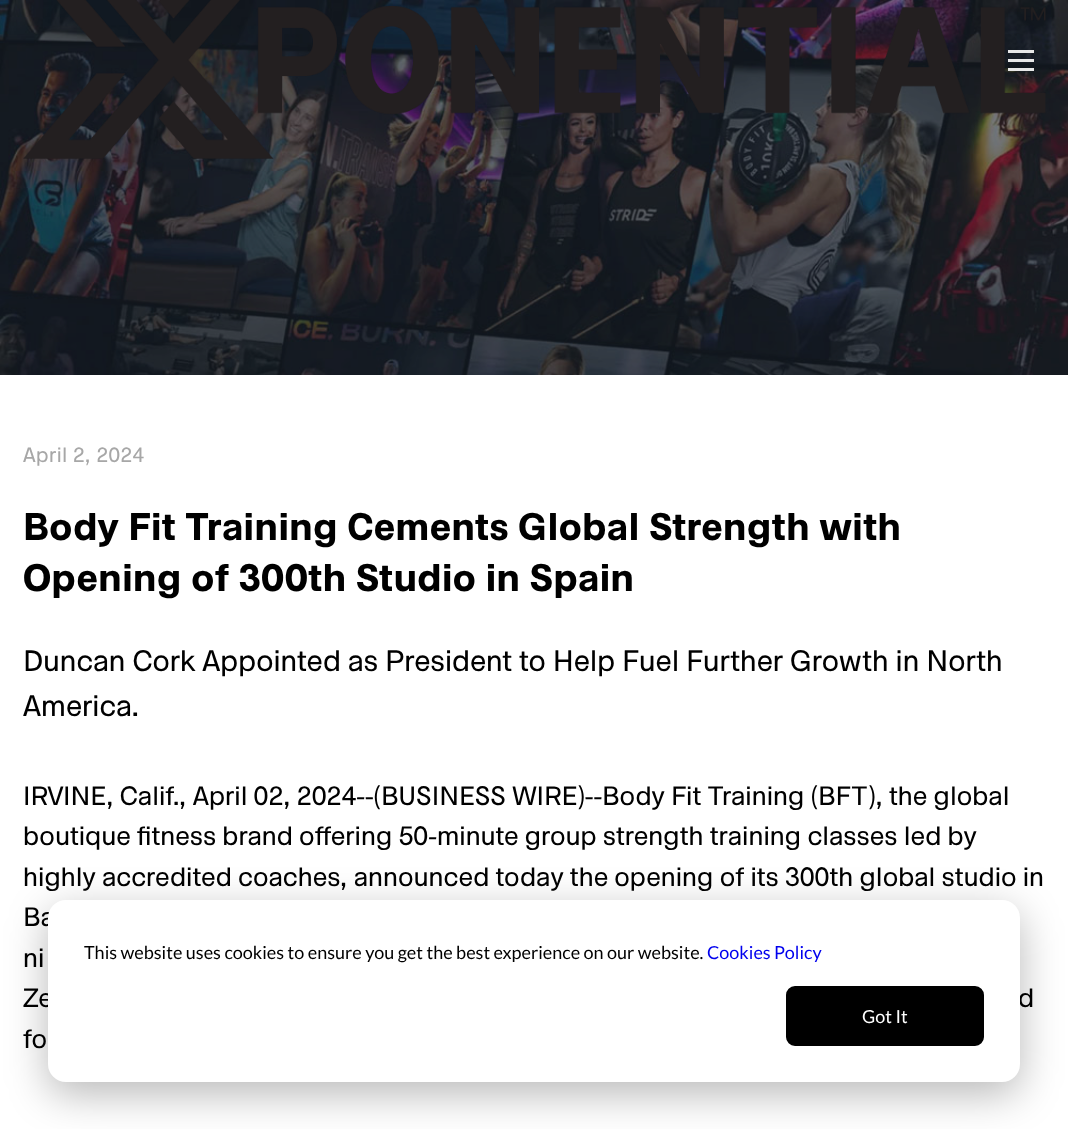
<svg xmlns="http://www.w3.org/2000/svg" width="1068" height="1129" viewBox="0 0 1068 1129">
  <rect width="100%" height="100%" fill="rgb(255,255,255)"/>
  <image x="0" y="0" width="1068" height="375" href="pic2.png"/>
  <image x="23" y="0" width="1023" height="159" href="pic1.png"/>
  <rect x="1008" y="59" width="26" height="3" fill="rgb(232,232,232)"/>
  <rect x="1008" y="50" width="26" height="3" fill="rgb(232,232,232)"/>
  <rect x="1008" y="68" width="26" height="3" fill="rgb(232,232,232)"/>
  <text x="23" y="462" font-family="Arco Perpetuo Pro" font-size="21" letter-spacing="0.45" fill="rgb(167,167,167)">April 2, 2024</text>
  <g font-family="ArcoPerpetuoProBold" font-size="39" font-weight="bold" letter-spacing="0.45" fill="rgb(0,0,0)">
    <text>
      <tspan x="23" y="540">Body Fit Training Cements Global Strength with</tspan>
      <tspan x="23" y="591">Opening of 300th Studio in Spain</tspan>
    </text>
  </g>
  <g font-family="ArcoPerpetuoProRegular" font-size="30" fill="rgb(0,0,0)">
    <text>
      <tspan x="23" y="671">Duncan Cork Appointed as President to Help Fuel Further Growth in North</tspan>
      <tspan x="23" y="716">America.</tspan>
    </text>
  </g>
  <g font-family="ArcoPerpetuoProRegular" font-size="27" fill="rgb(0,0,0)">
    <text>
      <tspan x="23" y="805">IRVINE, Calif., April 02, 2024--(BUSINESS WIRE)--Body Fit Training (BFT), the global</tspan>
      <tspan x="23" y="845">boutique fitness brand offering 50-minute group strength training classes led by</tspan>
      <tspan x="23" y="886">highly accredited coaches, announced today the opening of its 300th global studio in</tspan>
      <tspan x="23" y="926">Ba</tspan>
      <tspan x="23" y="967">ni</tspan>
      <tspan x="23" y="1007">Ze</tspan>
    </text>
    <text x="1018" y="1007">d</text>
    <text x="23" y="1048">fo</text>
  </g>
  <rect x="48" y="912" width="972" height="182" rx="18" fill="rgba(0,0,0,0.28)" filter="blur(21px)"/>
  <rect x="48" y="900" width="972" height="182" rx="18" fill="rgb(255,255,255)"/>
  <text x="84" y="959" font-family="Lato" font-size="18" fill="rgb(0,0,0)">This website uses cookies to ensure you get the best experience on our website.</text>
  <text x="707" y="959" font-family="Lato" font-size="18" fill="rgb(0,0,238)">Cookies Policy</text>
  <rect x="787" y="987" width="196" height="58" rx="8" fill="rgb(0,0,0)" stroke="rgb(0,0,0)" stroke-width="2"/>
  <text x="862" y="1023" font-family="Lato" font-size="18" fill="rgb(255,255,255)">Got It</text>
</svg>
